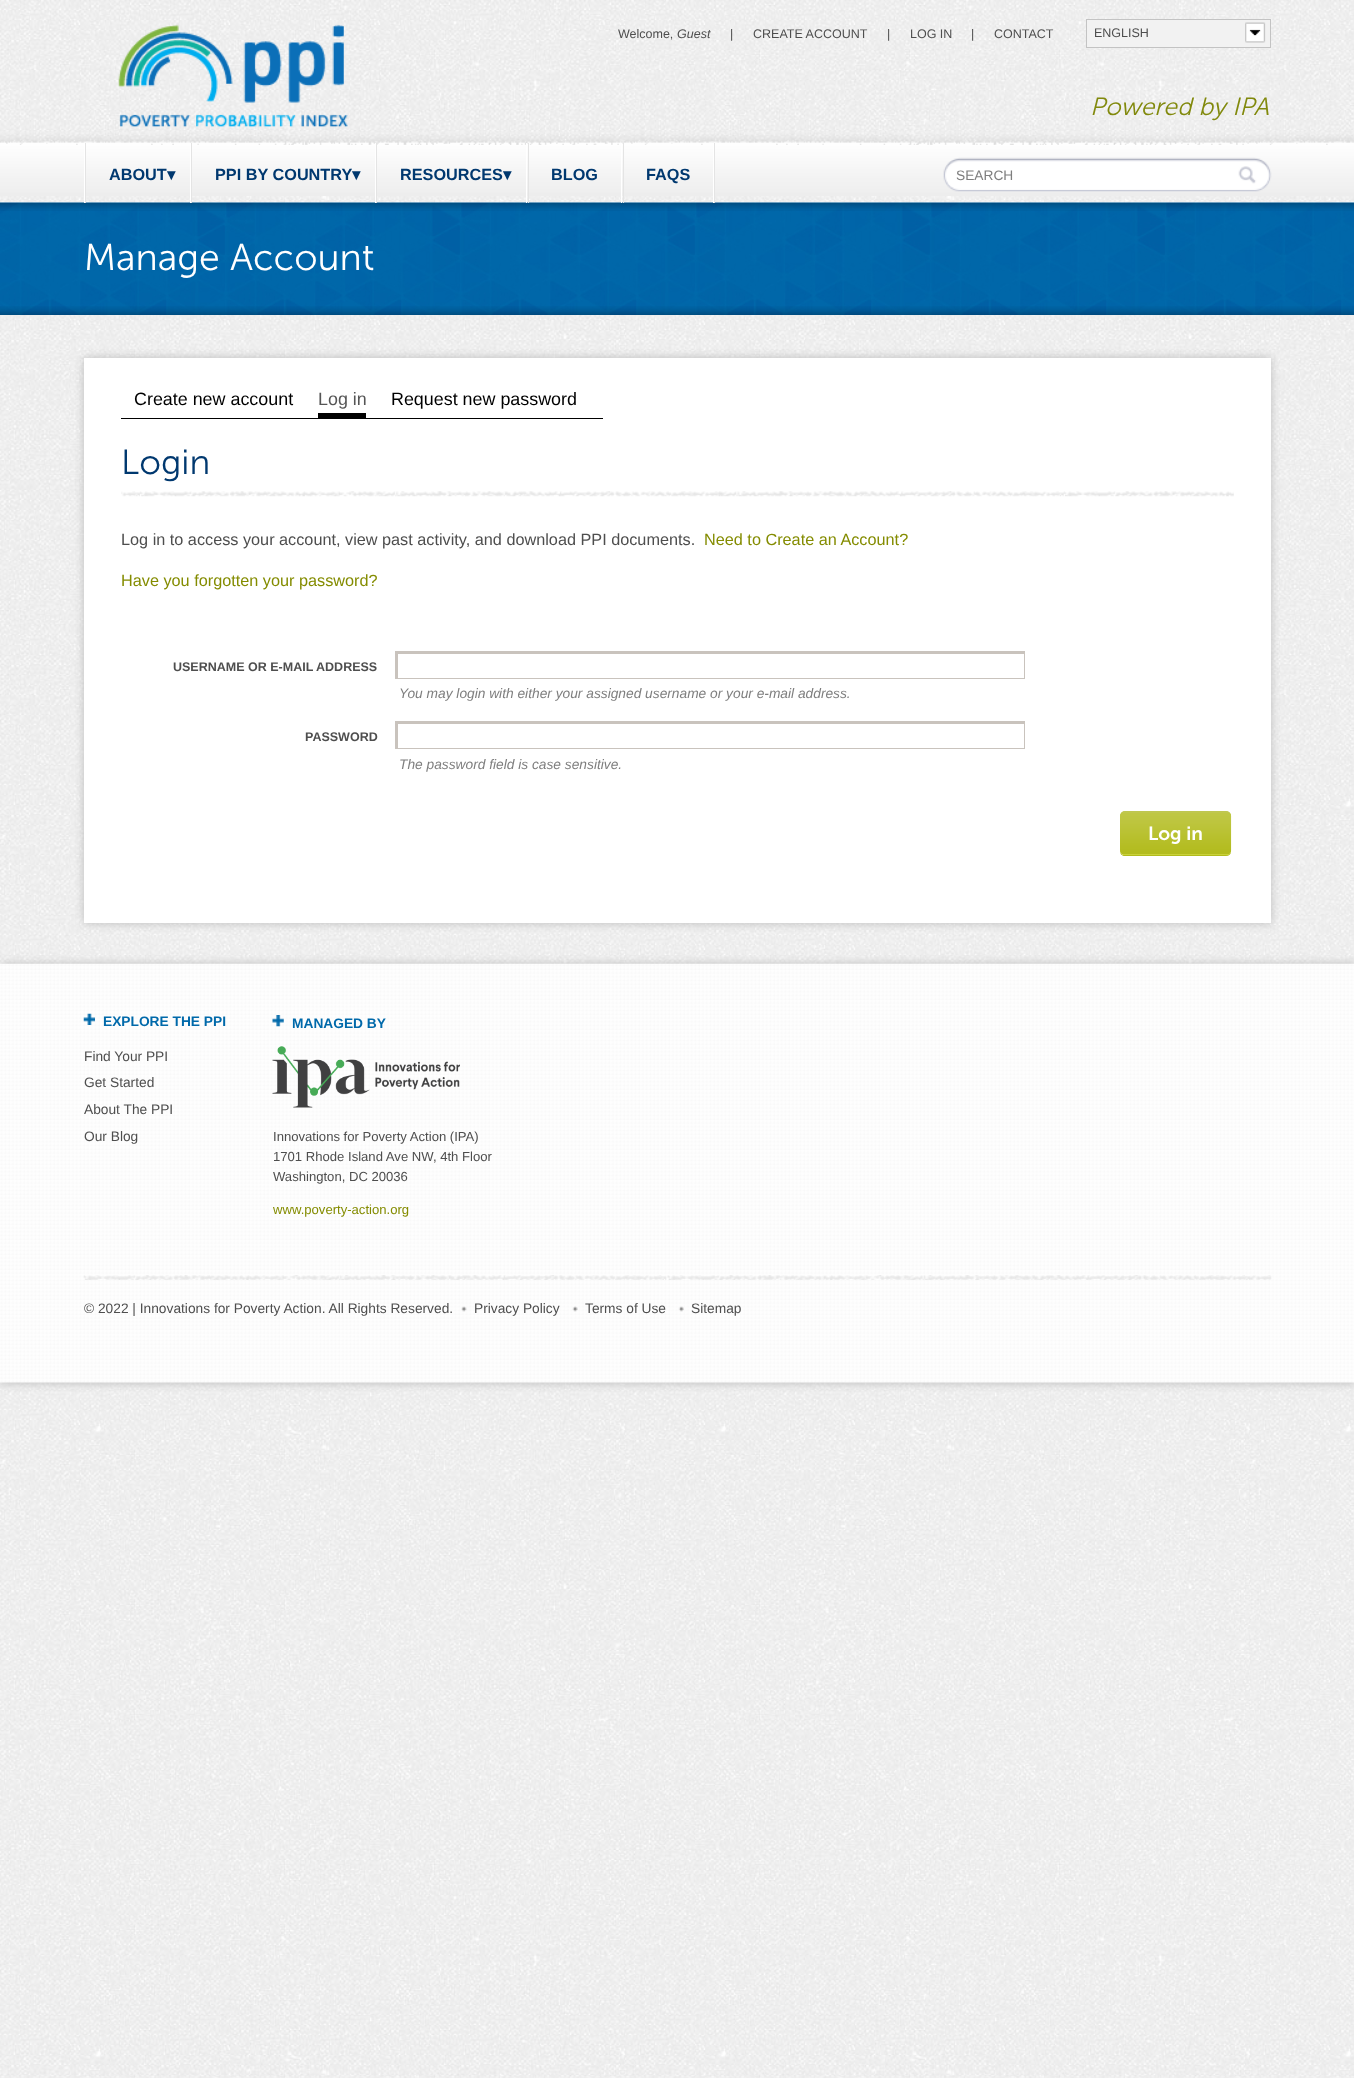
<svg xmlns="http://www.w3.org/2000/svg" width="1354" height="2078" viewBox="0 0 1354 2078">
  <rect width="100%" height="100%" fill="rgb(255,255,255)"/>
  <image x="0" y="0" width="1354" height="2078" href="pic1.png"/>
  <image x="118" y="24" width="230" height="103" href="pic2.png"/>
  <text x="618" y="38" font-family="Liberation Sans" font-size="12.5" fill="rgb(78,78,78)">Welcome,</text>
  <text x="677" y="38" font-family="Liberation Sans" font-size="12.5" font-style="italic" fill="rgb(78,78,78)">Guest</text>
  <g font-family="Liberation Sans" font-size="12.5" fill="rgb(78,78,78)">
    <text x="730" y="38">|</text>
    <text x="753" y="38">CREATE ACCOUNT</text>
    <text x="887" y="38">|</text>
    <text x="910" y="38">LOG IN</text>
    <text x="971" y="38">|</text>
    <text x="994" y="38">CONTACT</text>
  </g>
  <rect x="1086.5" y="19.5" width="184" height="28" fill="rgb(242,242,242)" stroke="rgb(195,195,195)"/>
  <image x="1245" y="22" width="21" height="21" href="pic3.png"/>
  <text x="1094" y="37" font-family="Liberation Sans" font-size="12.5" fill="rgb(78,78,78)">ENGLISH</text>
  <text x="1090" y="115" font-family="'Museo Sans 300'" font-size="25" font-weight="300" font-style="italic" fill="rgb(129,137,12)">Powered by IPA</text>
  <image x="0" y="142" width="1354" height="54" href="pic5.png"/>
  <image x="0" y="132" width="1354" height="13" href="pic4.png"/>
  <image x="0" y="202" width="1354" height="113" href="pic7.png"/>
  <image x="0" y="202" width="1354" height="9" href="pic8.png"/>
  <rect x="84" y="143" width="1" height="60" fill="rgb(255,255,255)"/>
  <rect x="190" y="143" width="1" height="60" fill="rgb(255,255,255)"/>
  <rect x="85" y="143" width="1" height="60" fill="rgb(228,228,228)"/>
  <text x="109" y="180" font-family="Liberation Sans" font-size="16.25" font-weight="bold" fill="rgb(0,56,111)">ABOUT</text>
  <text x="167" y="180" font-family="DejaVu Sans" font-size="16.25" font-weight="bold" fill="rgb(0,56,111)">▾</text>
  <rect x="375" y="143" width="1" height="60" fill="rgb(255,255,255)"/>
  <rect x="191" y="143" width="1" height="60" fill="rgb(228,228,228)"/>
  <text x="215" y="180" font-family="Liberation Sans" font-size="16.25" font-weight="bold" fill="rgb(0,56,111)">PPI BY COUNTRY</text>
  <text x="352" y="180" font-family="DejaVu Sans" font-size="16.25" font-weight="bold" fill="rgb(0,56,111)">▾</text>
  <rect x="526" y="143" width="1" height="60" fill="rgb(255,255,255)"/>
  <rect x="376" y="143" width="1" height="60" fill="rgb(228,228,228)"/>
  <text x="400" y="180" font-family="Liberation Sans" font-size="16.25" font-weight="bold" fill="rgb(0,56,111)">RESOURCES</text>
  <text x="503" y="180" font-family="DejaVu Sans" font-size="16.25" font-weight="bold" fill="rgb(0,56,111)">▾</text>
  <rect x="621" y="143" width="1" height="60" fill="rgb(255,255,255)"/>
  <rect x="528" y="143" width="1" height="60" fill="rgb(228,228,228)"/>
  <text x="551" y="180" font-family="Liberation Sans" font-size="16.25" font-weight="bold" fill="rgb(0,56,111)">BLOG</text>
  <rect x="714" y="143" width="1" height="60" fill="rgb(228,228,228)"/>
  <rect x="713" y="143" width="1" height="60" fill="rgb(255,255,255)"/>
  <rect x="623" y="143" width="1" height="60" fill="rgb(228,228,228)"/>
  <text x="646" y="180" font-family="Liberation Sans" font-size="16.25" font-weight="bold" fill="rgb(0,56,111)">FAQS</text>
  <image x="943" y="157" width="329" height="35" href="pic6.png"/>
  <text x="956" y="180" font-family="Liberation Sans" font-size="13.75" fill="rgb(126,126,126)">SEARCH</text>
  <text x="84" y="270" font-family="'Museo Sans 300'" font-size="37.5" font-weight="300" fill="rgb(255,255,255)">Manage Account</text>
  <image x="0" y="306" width="1354" height="9" href="pic9.png"/>
  <rect x="84" y="358" width="1187" height="565" fill="rgb(187,187,187)" filter="blur(5px)"/>
  <rect x="84" y="358" width="1187" height="565" fill="rgb(255,255,255)"/>
  <rect x="121" y="418" width="482" height="1" fill="rgb(0,0,0)"/>
  <text x="134" y="405" font-family="Liberation Sans" font-size="17.9" fill="rgb(0,0,0)">Create new account</text>
  <rect x="318" y="413" width="48" height="5" fill="rgb(0,0,0)"/>
  <text x="318" y="405" font-family="Liberation Sans" font-size="17.9" fill="rgb(85,85,85)">Log in</text>
  <text x="391" y="405" font-family="Liberation Sans" font-size="17.9" fill="rgb(0,0,0)">Request new password</text>
  <image x="121" y="491" width="1113" height="6" href="pic10.png"/>
  <text x="121" y="474" font-family="'Museo Sans 300'" font-size="35" font-weight="300" fill="rgb(0,56,111)">Login</text>
  <text x="121" y="545" font-family="Liberation Sans" font-size="16.25" fill="rgb(78,78,78)">Log in to access your account, view past activity, and download PPI documents.</text>
  <g font-family="Liberation Sans" font-size="16.25" fill="rgb(132,140,1)">
    <text x="704" y="545">Need to Create an Account?</text>
    <text x="121" y="586">Have you forgotten your password?</text>
  </g>
  <text x="173" y="671" font-family="Liberation Sans" font-size="12.5" font-weight="bold" fill="rgb(78,78,78)">USERNAME OR E-MAIL ADDRESS</text>
  <rect x="395" y="651" width="630" height="3" fill="rgb(201,195,189)"/>
  <rect x="1024" y="651" width="1" height="28" fill="rgb(201,195,189)"/>
  <rect x="395" y="678" width="630" height="1" fill="rgb(201,195,189)"/>
  <rect x="395" y="651" width="3" height="28" fill="rgb(201,195,189)"/>
  <text x="399" y="698" font-family="Liberation Sans" font-size="13.75" font-style="italic" fill="rgb(126,126,126)">You may login with either your assigned username or your e-mail address.</text>
  <text x="305" y="741" font-family="Liberation Sans" font-size="12.5" font-weight="bold" fill="rgb(78,78,78)">PASSWORD</text>
  <rect x="395" y="721" width="630" height="3" fill="rgb(201,195,189)"/>
  <rect x="1024" y="721" width="1" height="28" fill="rgb(201,195,189)"/>
  <rect x="395" y="748" width="630" height="1" fill="rgb(201,195,189)"/>
  <rect x="395" y="721" width="3" height="28" fill="rgb(201,195,189)"/>
  <text x="399" y="769" font-family="Liberation Sans" font-size="13.75" font-style="italic" fill="rgb(126,126,126)">The password field is case sensitive.</text>
  <path d="M1120 850V851C1120 854 1122 856 1125 856H1226C1229 856 1231 854 1231 852C1230 854 1228 855 1226 855H1125C1122 855 1120 853 1120 850Z" fill="rgb(178,187,28)"/>
  <rect x="1120" y="811" width="111" height="44" rx="5" fill="rgb(190,199,67)"/>
  <image x="1120" y="811" width="112" height="44" href="pic11.png"/>
  <rect x="1123" y="854" width="106" height="1" fill="rgb(201,210,57)"/>
  <text x="1148" y="840" font-family="'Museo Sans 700'" font-size="19" font-weight="600" fill="rgb(255,255,255)">Log in</text>
  <rect x="0" y="964" width="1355" height="419" fill="rgb(187,187,187)" filter="blur(5px)"/>
  <image x="0" y="963" width="1354" height="420" href="pic12.png"/>
  <image x="83" y="1013" width="12" height="12" href="pic13.png"/>
  <text x="103" y="1026" font-family="Liberation Sans" font-size="13.75" font-weight="bold" fill="rgb(0,105,170)">EXPLORE THE PPI</text>
  <g font-family="Liberation Sans" font-size="13.75" fill="rgb(78,78,78)">
    <text>
      <tspan x="84" y="1061">Find Your PPI</tspan>
      <tspan x="84" y="1087">Get Started</tspan>
      <tspan x="84" y="1114">About The PPI</tspan>
      <tspan x="84" y="1141">Our Blog</tspan>
    </text>
  </g>
  <image x="272" y="1015" width="12" height="12" href="pic14.png"/>
  <text x="292" y="1028" font-family="Liberation Sans" font-size="13.75" font-weight="bold" fill="rgb(0,105,170)">MANAGED BY</text>
  <image x="272" y="1046" width="188" height="62" href="pic15.png"/>
  <g font-family="Liberation Sans" font-size="13.1" fill="rgb(78,78,78)">
    <text>
      <tspan x="273" y="1141">Innovations for Poverty Action (IPA)</tspan>
      <tspan x="273" y="1161">1701 Rhode Island Ave NW, 4th Floor</tspan>
      <tspan x="273" y="1181">Washington, DC 20036</tspan>
    </text>
  </g>
  <text x="273" y="1214" font-family="Liberation Sans" font-size="13.1" fill="rgb(132,140,1)">www.poverty-action.org</text>
  <image x="83" y="1275" width="1189" height="5" href="pic16.png"/>
  <text x="84" y="1313" font-family="Liberation Sans" font-size="13.75" fill="rgb(78,78,78)">© 2022 | Innovations for Poverty Action. All Rights Reserved.</text>
  <image x="461" y="1306" width="6" height="6" href="pic17.png"/>
  <text x="474" y="1313" font-family="Liberation Sans" font-size="13.75" fill="rgb(78,78,78)">Privacy Policy</text>
  <image x="572" y="1306" width="6" height="6" href="pic18.png"/>
  <text x="585" y="1313" font-family="Liberation Sans" font-size="13.75" fill="rgb(78,78,78)">Terms of Use</text>
  <image x="678" y="1306" width="6" height="6" href="pic19.png"/>
  <text x="691" y="1313" font-family="Liberation Sans" font-size="13.75" fill="rgb(78,78,78)">Sitemap</text>
</svg>
